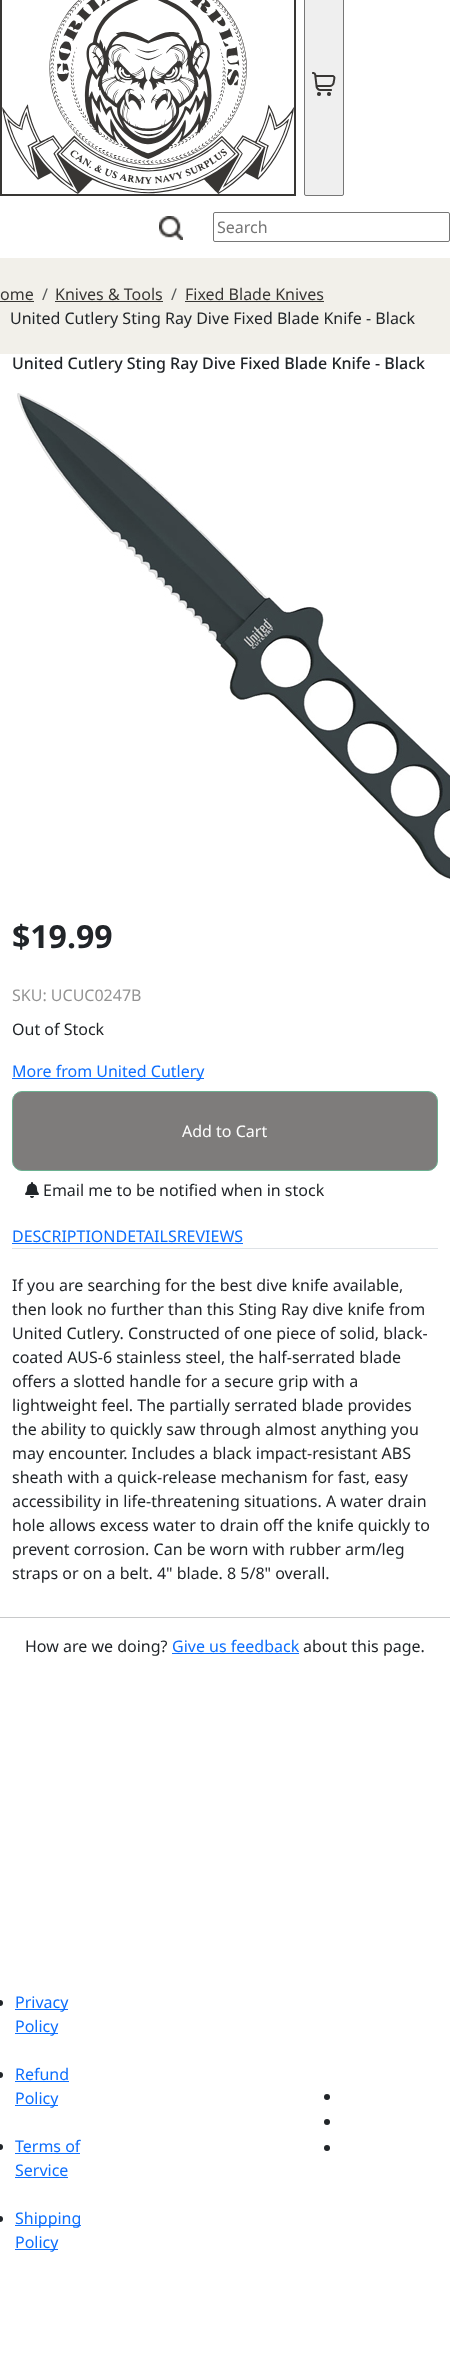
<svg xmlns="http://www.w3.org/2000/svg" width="450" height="2358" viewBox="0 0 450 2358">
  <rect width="100%" height="100%" fill="rgb(255,255,255)"/>
  <rect x="1" y="-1" width="294" height="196" fill="none" stroke="rgb(56,54,52)" stroke-width="2"/>
  <image x="2" y="0" width="292" height="194" href="pic1.png"/>
  <rect x="304.5" y="-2.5" width="39" height="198" rx="1.5" fill="rgb(239,239,239)" stroke="rgb(118,118,118)"/>
  <image x="312" y="72" width="24" height="24" href="pic2.png"/>
  <image x="159" y="216" width="24" height="24" href="pic3.png"/>
  <rect x="213.5" y="212.5" width="236" height="29" rx="1.5" fill="none" stroke="rgb(118,118,118)"/>
  <text x="217" y="233" font-family="Noto Sans" font-size="16" fill="rgb(117,117,117)">Search</text>
  <rect x="0" y="258" width="450" height="96" fill="rgb(242,240,234)"/>
  <text x="0" y="300" font-family="Noto Sans" font-size="16" fill="rgb(56,54,52)">ome</text>
  <rect x="0" y="301" width="34" height="1" fill="rgb(56,54,52)"/>
  <text x="42" y="300" font-family="Noto Sans" font-size="16" fill="rgb(85,88,89)">/</text>
  <text x="55" y="300" font-family="Noto Sans" font-size="16" fill="rgb(56,54,52)">Knives &amp; Tools</text>
  <rect x="55" y="301" width="108" height="1" fill="rgb(56,54,52)"/>
  <text x="171" y="300" font-family="Noto Sans" font-size="16" fill="rgb(85,88,89)">/</text>
  <text x="185" y="300" font-family="Noto Sans" font-size="16" fill="rgb(56,54,52)">Fixed Blade Knives</text>
  <rect x="185" y="301" width="139" height="1" fill="rgb(56,54,52)"/>
  <text x="10" y="324" font-family="Noto Sans" font-size="16" fill="rgb(33,37,41)">United Cutlery Sting Ray Dive Fixed Blade Knife - Black</text>
  <text x="12" y="369" font-family="Noto Sans" font-size="16" font-weight="500" fill="rgb(33,37,41)">United Cutlery Sting Ray Dive Fixed Blade Knife - Black</text>
  <image x="17" y="393" width="433" height="486" href="pic4.png"/>
  <text x="12" y="948" font-family="Noto Sans" font-size="32" font-weight="bold" fill="rgb(33,37,41)">$19.99</text>
  <text x="12" y="1001" font-family="Noto Sans" font-size="16" fill="rgb(148,148,148)">SKU: UCUC0247B</text>
  <text x="12" y="1035" font-family="Noto Sans" font-size="16" fill="rgb(33,37,41)">Out of Stock</text>
  <rect x="12" y="1078" width="192" height="1" fill="rgb(13,110,253)"/>
  <text x="12" y="1077" font-family="Noto Sans" font-size="16" fill="rgb(13,110,253)">More from United Cutlery</text>
  <rect x="12.5" y="1091.5" width="425" height="79" rx="9.5" fill="rgb(126,124,123)" stroke="rgb(106,177,144)"/>
  <text x="182" y="1137" font-family="Noto Sans" font-size="16" fill="rgb(255,255,255)">Add to Cart</text>
  <image x="25" y="1182" width="14" height="16" href="pic5.png"/>
  <text x="43" y="1196" font-family="Noto Sans" font-size="16" fill="rgb(33,37,41)">Email me to be notified when in stock</text>
  <rect x="12" y="1248" width="426" height="1" fill="rgb(222,226,230)"/>
  <text x="12" y="1242" font-family="Noto Sans" font-size="16" fill="rgb(13,110,253)">DESCRIPTIONDETAILSREVIEWS</text>
  <rect x="12" y="1243" width="231" height="1" fill="rgb(13,110,253)"/>
  <g font-family="Noto Sans" font-size="16" fill="rgb(33,37,41)">
    <text>
      <tspan x="12" y="1291">If you are searching for the best dive knife available,</tspan>
      <tspan x="12" y="1315">then look no further than this Sting Ray dive knife from</tspan>
      <tspan x="12" y="1339">United Cutlery. Constructed of one piece of solid, black-</tspan>
      <tspan x="12" y="1363">coated AUS-6 stainless steel, the half-serrated blade</tspan>
      <tspan x="12" y="1387">offers a slotted handle for a secure grip with a</tspan>
      <tspan x="12" y="1411">lightweight feel. The partially serrated blade provides</tspan>
      <tspan x="12" y="1435">the ability to quickly saw through almost anything you</tspan>
      <tspan x="12" y="1459">may encounter. Includes a black impact-resistant ABS</tspan>
      <tspan x="12" y="1483">sheath with a quick-release mechanism for fast, easy</tspan>
      <tspan x="12" y="1507">accessibility in life-threatening situations. A water drain</tspan>
      <tspan x="12" y="1531">hole allows excess water to drain off the knife quickly to</tspan>
      <tspan x="12" y="1555">prevent corrosion. Can be worn with rubber arm/leg</tspan>
      <tspan x="12" y="1579">straps or on a belt. 4" blade. 8 5/8" overall.</tspan>
    </text>
  </g>
  <rect x="0" y="1617" width="450" height="1" fill="rgb(200,201,202)"/>
  <text x="25" y="1652" font-family="Noto Sans" font-size="16" fill="rgb(33,37,41)">How are we doing?</text>
  <text x="172" y="1652" font-family="Noto Sans" font-size="16" fill="rgb(13,110,253)">Give us feedback</text>
  <rect x="172" y="1653" width="127" height="1" fill="rgb(13,110,253)"/>
  <text x="303" y="1652" font-family="Noto Sans" font-size="16" fill="rgb(33,37,41)">about this page.</text>
  <circle cx="0" cy="2003" r="3" fill="rgb(33,37,41)"/>
  <rect x="15" y="2009" width="53" height="1" fill="rgb(13,110,253)"/>
  <text x="15" y="2008" font-family="Noto Sans" font-size="16" fill="rgb(13,110,253)">Privacy</text>
  <rect x="15" y="2033" width="43" height="1" fill="rgb(13,110,253)"/>
  <text x="15" y="2032" font-family="Noto Sans" font-size="16" fill="rgb(13,110,253)">Policy</text>
  <circle cx="0" cy="2075" r="3" fill="rgb(33,37,41)"/>
  <text x="15" y="2080" font-family="Noto Sans" font-size="16" fill="rgb(13,110,253)">Refund</text>
  <rect x="15" y="2081" width="54" height="1" fill="rgb(13,110,253)"/>
  <rect x="15" y="2105" width="43" height="1" fill="rgb(13,110,253)"/>
  <text x="15" y="2104" font-family="Noto Sans" font-size="16" fill="rgb(13,110,253)">Policy</text>
  <circle cx="0" cy="2147" r="3" fill="rgb(33,37,41)"/>
  <text x="15" y="2152" font-family="Noto Sans" font-size="16" fill="rgb(13,110,253)">Terms of</text>
  <rect x="15" y="2153" width="65" height="1" fill="rgb(13,110,253)"/>
  <text x="15" y="2176" font-family="Noto Sans" font-size="16" fill="rgb(13,110,253)">Service</text>
  <rect x="15" y="2177" width="53" height="1" fill="rgb(13,110,253)"/>
  <circle cx="0" cy="2219" r="3" fill="rgb(33,37,41)"/>
  <rect x="15" y="2225" width="66" height="1" fill="rgb(13,110,253)"/>
  <text x="15" y="2224" font-family="Noto Sans" font-size="16" fill="rgb(13,110,253)">Shipping</text>
  <rect x="15" y="2249" width="43" height="1" fill="rgb(13,110,253)"/>
  <text x="15" y="2248" font-family="Noto Sans" font-size="16" fill="rgb(13,110,253)">Policy</text>
  <circle cx="327" cy="2097" r="3" fill="rgb(33,37,41)"/>
  <circle cx="327" cy="2122" r="3" fill="rgb(33,37,41)"/>
  <circle cx="327" cy="2148" r="3" fill="rgb(33,37,41)"/>
</svg>
